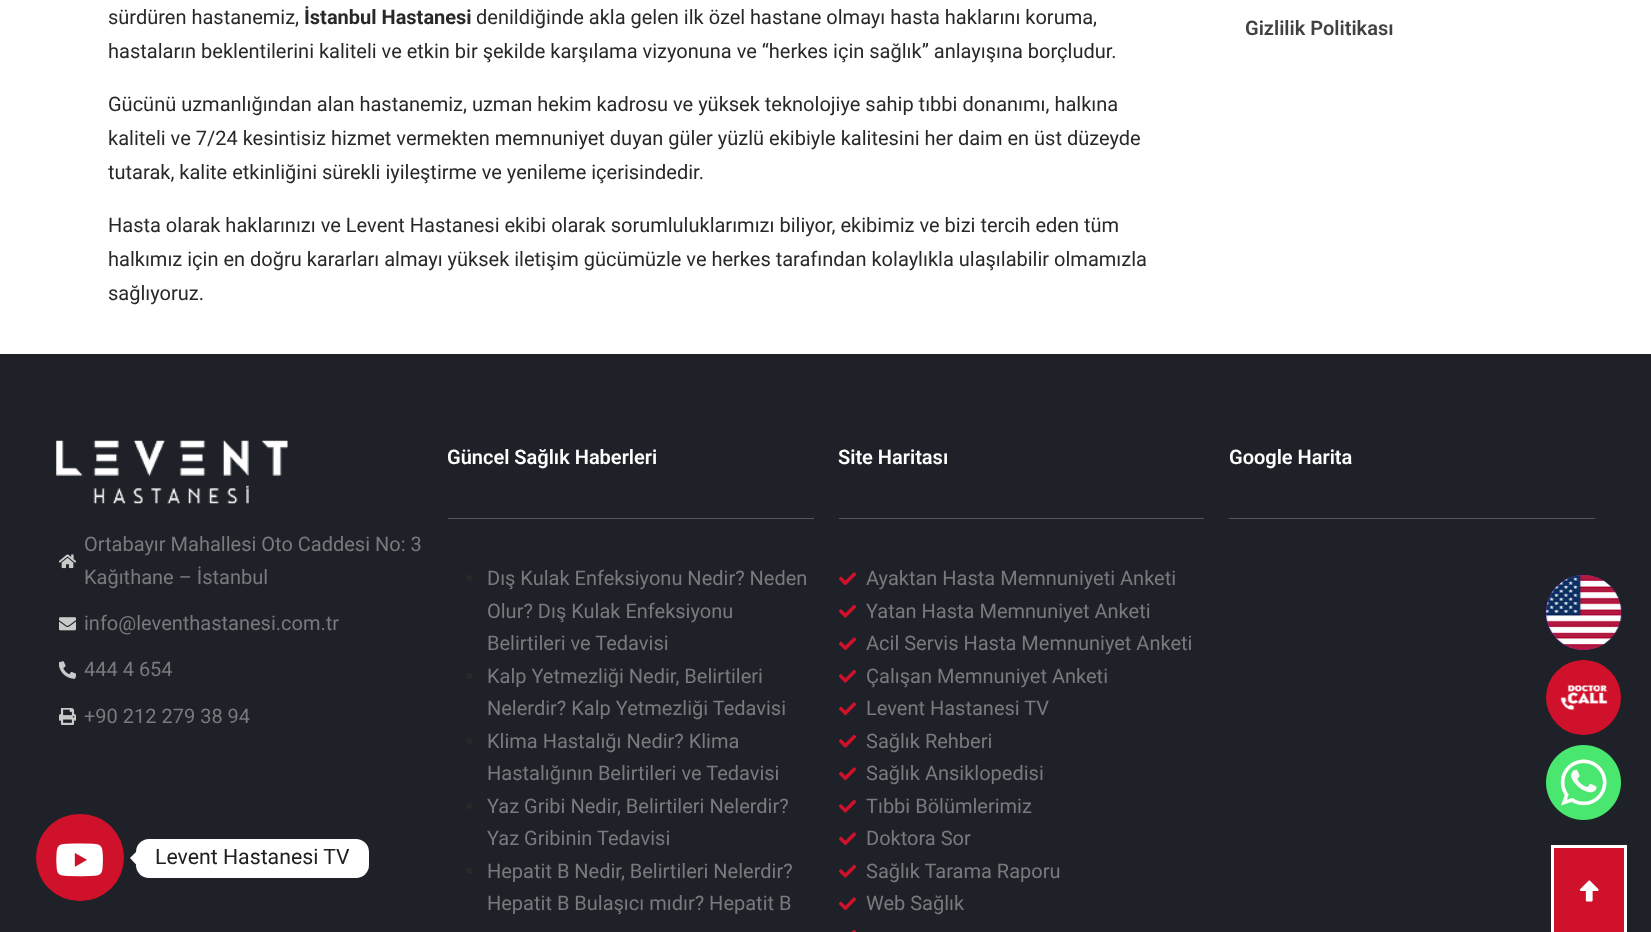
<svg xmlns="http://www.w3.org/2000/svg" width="1651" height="932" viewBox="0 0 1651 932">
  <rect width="100%" height="100%" fill="rgb(255,255,255)"/>
  <text x="108" y="24" font-family="Roboto" font-size="20" fill="rgb(40,40,40)">sürdüren hastanemiz,</text>
  <text x="304" y="24" font-family="Roboto" font-size="20" font-weight="bold" fill="rgb(40,40,40)">İstanbul Hastanesi</text>
  <g font-family="Roboto" font-size="20" fill="rgb(40,40,40)">
    <text x="476" y="24">denildiğinde akla gelen ilk özel hastane olmayı hasta haklarını koruma,</text>
    <text x="108" y="58">hastaların beklentilerini kaliteli ve etkin bir şekilde karşılama vizyonuna ve “herkes için sağlık” anlayışına borçludur.</text>
    <text>
      <tspan x="108" y="111">Gücünü uzmanlığından alan hastanemiz, uzman hekim kadrosu ve yüksek teknolojiye sahip tıbbi donanımı, halkına</tspan>
      <tspan x="108" y="145">kaliteli ve 7/24 kesintisiz hizmet vermekten memnuniyet duyan güler yüzlü ekibiyle kalitesini her daim en üst düzeyde</tspan>
      <tspan x="108" y="179">tutarak, kalite etkinliğini sürekli iyileştirme ve yenileme içerisindedir.</tspan>
    </text>
    <text>
      <tspan x="108" y="232">Hasta olarak haklarınızı ve Levent Hastanesi ekibi olarak sorumluluklarımızı biliyor, ekibimiz ve bizi tercih eden tüm</tspan>
      <tspan x="108" y="266">halkımız için en doğru kararları almayı yüksek iletişim gücümüzle ve herkes tarafından kolaylıkla ulaşılabilir olmamızla</tspan>
      <tspan x="108" y="300">sağlıyoruz.</tspan>
    </text>
  </g>
  <text x="1245" y="35" font-family="Roboto" font-size="20" font-weight="600" fill="rgb(65,65,65)">Gizlilik Politikası</text>
  <rect x="0" y="354" width="1651" height="578" fill="rgb(30,33,39)"/>
  <text x="447" y="464" font-family="Roboto" font-size="20" font-weight="600" fill="rgb(255,255,255)">Güncel Sağlık Haberleri</text>
  <rect x="448" y="518" width="366" height="1" fill="rgb(84,86,91)"/>
  <rect x="466" y="575" width="7" height="6" rx="3" fill="rgb(40,40,40)"/>
  <g font-family="Roboto" font-size="20" fill="rgb(120,122,126)">
    <text>
      <tspan x="487" y="585">Dış Kulak Enfeksiyonu Nedir? Neden</tspan>
      <tspan x="487" y="618">Olur? Dış Kulak Enfeksiyonu</tspan>
      <tspan x="487" y="650">Belirtileri ve Tedavisi</tspan>
    </text>
  </g>
  <rect x="466" y="673" width="7" height="6" rx="3" fill="rgb(40,40,40)"/>
  <g font-family="Roboto" font-size="20" fill="rgb(120,122,126)">
    <text>
      <tspan x="487" y="683">Kalp Yetmezliği Nedir, Belirtileri</tspan>
      <tspan x="487" y="715">Nelerdir? Kalp Yetmezliği Tedavisi</tspan>
    </text>
  </g>
  <rect x="466" y="738" width="7" height="6" rx="3" fill="rgb(40,40,40)"/>
  <g font-family="Roboto" font-size="20" fill="rgb(120,122,126)">
    <text>
      <tspan x="487" y="748">Klima Hastalığı Nedir? Klima</tspan>
      <tspan x="487" y="780">Hastalığının Belirtileri ve Tedavisi</tspan>
    </text>
  </g>
  <rect x="466" y="803" width="7" height="6" rx="3" fill="rgb(40,40,40)"/>
  <g font-family="Roboto" font-size="20" fill="rgb(120,122,126)">
    <text>
      <tspan x="487" y="813">Yaz Gribi Nedir, Belirtileri Nelerdir?</tspan>
      <tspan x="487" y="845">Yaz Gribinin Tedavisi</tspan>
    </text>
  </g>
  <rect x="466" y="868" width="7" height="6" rx="3" fill="rgb(40,40,40)"/>
  <g font-family="Roboto" font-size="20" fill="rgb(120,122,126)">
    <text>
      <tspan x="487" y="878">Hepatit B Nedir, Belirtileri Nelerdir?</tspan>
      <tspan x="487" y="910">Hepatit B Bulaşıcı mıdır? Hepatit B</tspan>
    </text>
  </g>
  <text x="838" y="464" font-family="Roboto" font-size="20" font-weight="600" fill="rgb(255,255,255)">Site Haritası</text>
  <rect x="839" y="518" width="365" height="1" fill="rgb(84,86,91)"/>
  <image x="839" y="572" width="17" height="14" href="pic1.png"/>
  <text x="866" y="585" font-family="Roboto" font-size="20" fill="rgb(120,122,126)">Ayaktan Hasta Memnuniyeti Anketi</text>
  <image x="839" y="604" width="17" height="14" href="pic2.png"/>
  <text x="866" y="618" font-family="Roboto" font-size="20" fill="rgb(120,122,126)">Yatan Hasta Memnuniyet Anketi</text>
  <image x="839" y="637" width="17" height="14" href="pic1.png"/>
  <text x="866" y="650" font-family="Roboto" font-size="20" fill="rgb(120,122,126)">Acil Servis Hasta Memnuniyet Anketi</text>
  <image x="839" y="669" width="17" height="14" href="pic2.png"/>
  <text x="866" y="683" font-family="Roboto" font-size="20" fill="rgb(120,122,126)">Çalışan Memnuniyet Anketi</text>
  <image x="839" y="702" width="17" height="14" href="pic1.png"/>
  <text x="866" y="715" font-family="Roboto" font-size="20" fill="rgb(120,122,126)">Levent Hastanesi TV</text>
  <image x="839" y="734" width="17" height="14" href="pic2.png"/>
  <text x="866" y="748" font-family="Roboto" font-size="20" fill="rgb(120,122,126)">Sağlık Rehberi</text>
  <image x="839" y="767" width="17" height="14" href="pic1.png"/>
  <text x="866" y="780" font-family="Roboto" font-size="20" fill="rgb(120,122,126)">Sağlık Ansiklopedisi</text>
  <image x="839" y="799" width="17" height="14" href="pic2.png"/>
  <text x="866" y="813" font-family="Roboto" font-size="20" fill="rgb(120,122,126)">Tıbbi Bölümlerimiz</text>
  <image x="839" y="832" width="17" height="14" href="pic1.png"/>
  <text x="866" y="845" font-family="Roboto" font-size="20" fill="rgb(120,122,126)">Doktora Sor</text>
  <image x="839" y="864" width="17" height="14" href="pic2.png"/>
  <text x="866" y="878" font-family="Roboto" font-size="20" fill="rgb(120,122,126)">Sağlık Tarama Raporu</text>
  <image x="839" y="897" width="17" height="14" href="pic1.png"/>
  <text x="866" y="910" font-family="Roboto" font-size="20" fill="rgb(120,122,126)">Web Sağlık</text>
  <image x="851" y="929" width="5" height="3" href="pic3.png"/>
  <text x="1229" y="464" font-family="Roboto" font-size="20" font-weight="600" fill="rgb(255,255,255)">Google Harita</text>
  <rect x="1229" y="518" width="366" height="1" fill="rgb(84,86,91)"/>
  <image x="56" y="440" width="232" height="64" href="pic4.png"/>
  <image x="59" y="554" width="17" height="15" href="pic5.png"/>
  <g font-family="Roboto" font-size="20" fill="rgb(120,122,126)">
    <text>
      <tspan x="84" y="551">Ortabayır Mahallesi Oto Caddesi No: 3</tspan>
      <tspan x="84" y="584">Kağıthane – İstanbul</tspan>
    </text>
  </g>
  <image x="59" y="617" width="17" height="14" href="pic6.png"/>
  <text x="84" y="630" font-family="Roboto" font-size="20" fill="rgb(120,122,126)">info@leventhastanesi.com.tr</text>
  <image x="59" y="661" width="17" height="18" href="pic7.png"/>
  <text x="84" y="676" font-family="Roboto" font-size="20" fill="rgb(120,122,126)">444 4 654</text>
  <image x="59" y="708" width="17" height="17" href="pic8.png"/>
  <text x="84" y="723" font-family="Roboto" font-size="20" fill="rgb(120,122,126)">+90 212 279 38 94</text>
  <circle cx="1583.5" cy="612.5" r="37.5" fill="rgb(129,65,252)"/>
  <image x="1546" y="575" width="76" height="75" href="pic9.png"/>
  <circle cx="1583.5" cy="697.5" r="37.5" fill="rgb(208,17,43)"/>
  <image x="1560" y="685" width="48" height="25" href="pic10.png"/>
  <image x="1546" y="745" width="75" height="75" href="pic11.png"/>
  <rect x="36" y="814" width="88" height="87" rx="43.5" fill="rgb(208,17,43)"/>
  <image x="56" y="843" width="47" height="34" href="pic12.png"/>
  <rect x="136" y="839" width="233" height="39" rx="13" fill="rgb(255,255,255)"/>
  <path d="M136 852V864.5L130 858Z" fill="rgb(255,255,255)"/>
  <text x="155" y="864" font-family="Roboto" font-size="21.25" fill="rgb(32,32,32)">Levent Hastanesi TV</text>
  <rect x="1554" y="848" width="70" height="84" fill="rgb(208,17,43)"/>
  <rect x="1551" y="845" width="75" height="3" fill="rgb(255,255,255)"/>
  <rect x="1624" y="845" width="3" height="87" fill="rgb(255,255,255)"/>
  <rect x="1551" y="845" width="3" height="87" fill="rgb(255,255,255)"/>
  <image x="1579" y="880" width="20" height="22" href="pic13.png"/>
</svg>
